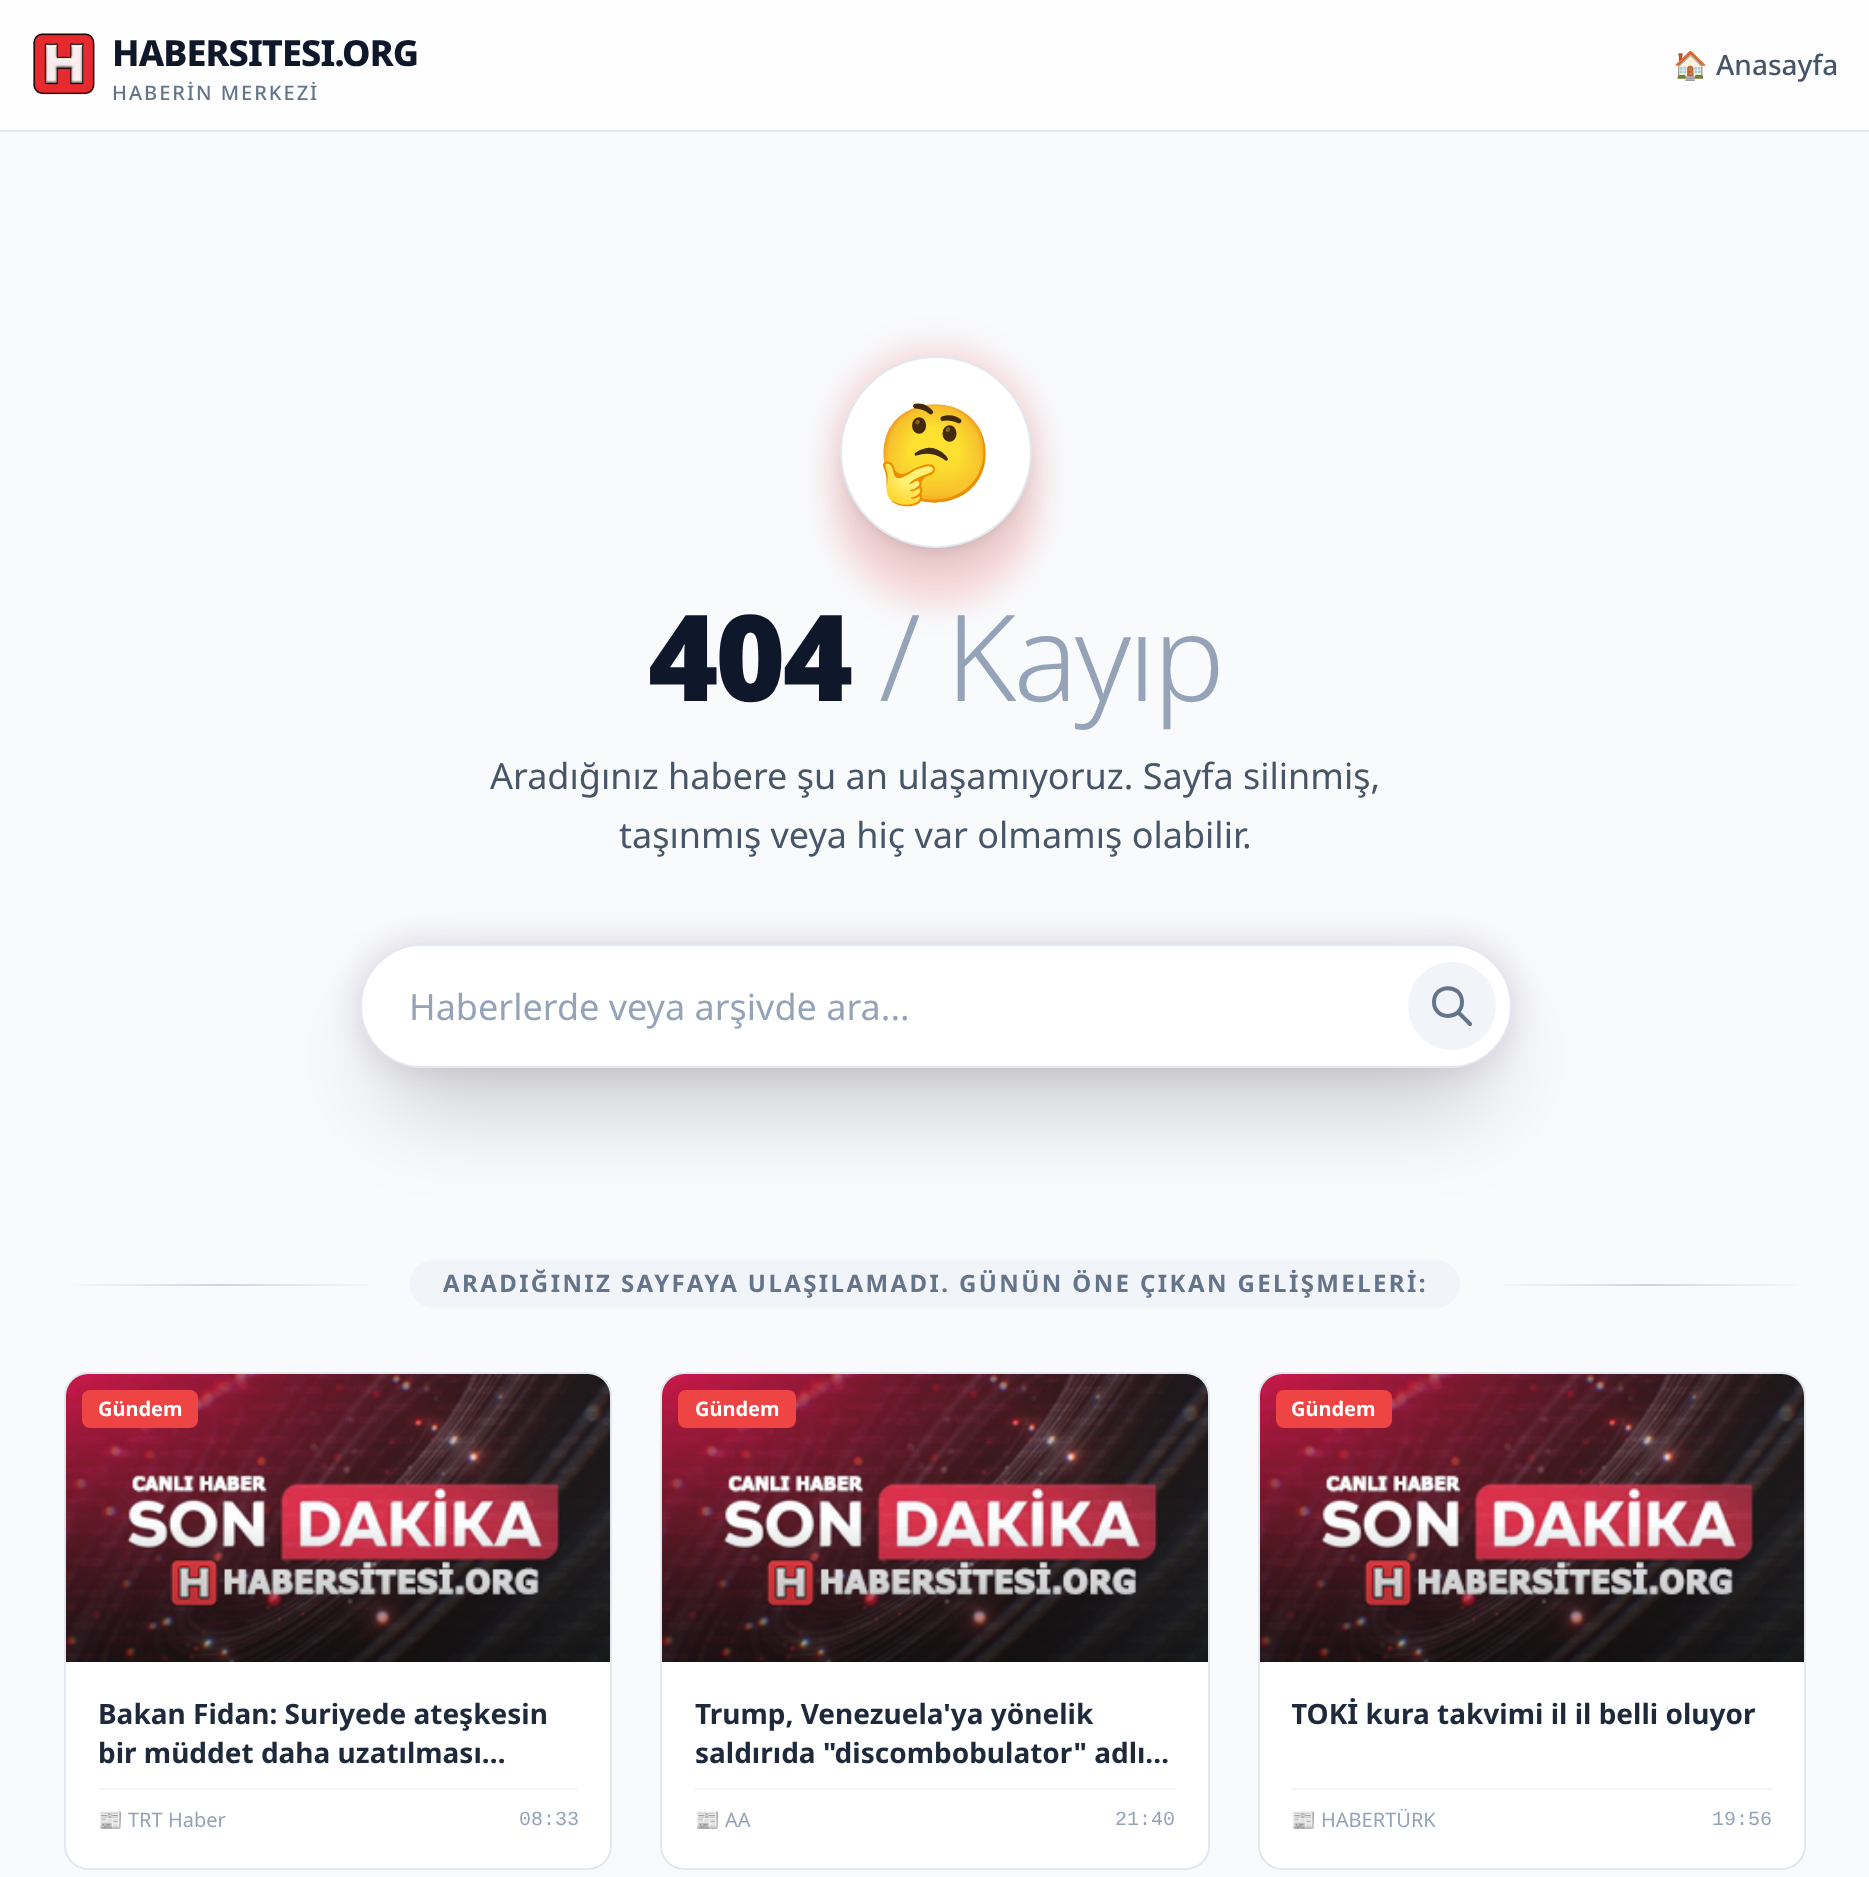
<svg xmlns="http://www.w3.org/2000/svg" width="1869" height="1877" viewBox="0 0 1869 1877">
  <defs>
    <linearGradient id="g1" gradientUnits="userSpaceOnUse" x1="64" y1="1285" x2="378" y2="1285"><stop offset="0" stop-color="rgb(248,250,252)"/><stop offset="0.5" stop-color="rgb(203,213,225)"/><stop offset="1" stop-color="rgb(248,250,252)"/></linearGradient>
    <linearGradient id="g2" gradientUnits="userSpaceOnUse" x1="1492" y1="1285" x2="1806" y2="1285"><stop offset="0" stop-color="rgb(248,250,252)"/><stop offset="0.5" stop-color="rgb(203,213,225)"/><stop offset="1" stop-color="rgb(248,250,252)"/></linearGradient>
    <linearGradient id="g3" gradientUnits="userSpaceOnUse" x1="338" y1="1662" x2="338" y2="1374"><stop offset="0" stop-color="rgb(0,0,0)" stop-opacity="0.36"/><stop offset="0.5" stop-color="rgb(0,0,0)" stop-opacity="0"/><stop offset="1" stop-color="rgb(0,0,0)" stop-opacity="0"/></linearGradient>
    <linearGradient id="g4" gradientUnits="userSpaceOnUse" x1="935" y1="1662" x2="935" y2="1374"><stop offset="0" stop-color="rgb(0,0,0)" stop-opacity="0.36"/><stop offset="0.5" stop-color="rgb(0,0,0)" stop-opacity="0"/><stop offset="1" stop-color="rgb(0,0,0)" stop-opacity="0"/></linearGradient>
    <linearGradient id="g5" gradientUnits="userSpaceOnUse" x1="1532" y1="1662" x2="1532" y2="1374"><stop offset="0" stop-color="rgb(0,0,0)" stop-opacity="0.36"/><stop offset="0.5" stop-color="rgb(0,0,0)" stop-opacity="0"/><stop offset="1" stop-color="rgb(0,0,0)" stop-opacity="0"/></linearGradient>
    <clipPath id="clip1"><rect x="1292" y="1694" width="480" height="38"/></clipPath>
  </defs>
  <rect width="100%" height="100%" fill="rgb(248,250,252)"/>
  <rect x="0" y="0" width="1869" height="130" fill="rgb(254,254,255)"/>
  <rect x="0" y="130" width="1869" height="2" fill="rgb(226,232,240)"/>
  <image x="33" y="33" width="62" height="62" href="pic1.png"/>
  <text x="112" y="66" font-family="Noto Sans" font-size="36" font-weight="800" letter-spacing="-0.9" fill="rgb(15,23,42)">HABERSITESI.ORG</text>
  <text x="112" y="100" font-family="Noto Sans" font-size="20" font-weight="500" letter-spacing="2" fill="rgb(100,116,139)">HABERİN MERKEZİ</text>
  <text x="1673" y="75" font-family="Noto Color Emoji" font-size="28" fill="rgb(71,85,105)">🏠</text>
  <text x="1716" y="75" font-family="Noto Sans" font-size="28" font-weight="500" fill="rgb(71,85,105)">Anasayfa</text>
  <rect x="832" y="348" width="208" height="256" rx="104" fill="rgba(239,68,68,0.2)" filter="blur(16px)"/>
  <rect x="848" y="372" width="176" height="176" rx="88" fill="rgba(0,0,0,0.1)" filter="blur(6px)"/>
  <rect x="846" y="382" width="180" height="180" rx="90" fill="rgba(0,0,0,0.1)" filter="blur(15px)"/>
  <circle cx="936" cy="452" r="95" fill="rgb(255,255,255)" stroke="rgb(226,232,240)" stroke-width="2"/>
  <text x="875" y="487" font-family="Noto Color Emoji" font-size="96" fill="rgb(239,68,68)">🤔</text>
  <text x="648" y="701" font-family="Noto Sans" font-size="120" font-weight="900" letter-spacing="-3" fill="rgb(15,23,42)">404</text>
  <text x="879" y="701" font-family="Noto Sans" font-size="120" font-weight="300" letter-spacing="-3" fill="rgb(148,163,184)">/ Kayıp</text>
  <g font-family="Noto Sans" font-size="36" fill="rgb(71,85,105)">
    <text x="490" y="789">Aradığınız habere şu an ulaşamıyoruz. Sayfa silinmiş,</text>
    <text x="619" y="848">taşınmış veya hiç var olmamış olabilir.</text>
  </g>
  <rect x="360" y="944" width="1152" height="124" rx="62" fill="rgb(223,212,228)" filter="blur(16px)"/>
  <rect x="384" y="1018" width="1104" height="76" rx="38" fill="rgba(0,0,0,0.25)" filter="blur(50px)"/>
  <rect x="361" y="945" width="1150" height="122" rx="61" fill="rgb(255,255,255)" stroke="rgb(226,232,240)" stroke-width="2"/>
  <text x="409" y="1020" font-family="Noto Sans" font-size="36" fill="rgb(148,163,184)">Haberlerde veya arşivde ara...</text>
  <circle cx="1452" cy="1006" r="44" fill="rgb(241,245,249)"/>
  <path d="M1470 1024L1458 1012M1462 1002C1462 1020.5 1434 1020.5 1434 1002C1434 983.5 1462 983.5 1462 1002Z" fill="none" stroke="rgb(100,116,139)" stroke-width="4" stroke-linecap="round" stroke-linejoin="round"/>
  <rect x="73" y="1284" width="296" height="2" fill="url(#g1)"/>
  <rect x="410" y="1260" width="1050" height="48" rx="24" fill="rgb(241,245,249)"/>
  <text x="443" y="1292" font-family="Noto Sans" font-size="24" font-weight="bold" letter-spacing="2.4" fill="rgb(100,116,139)">ARADIĞINIZ SAYFAYA ULAŞILAMADI. GÜNÜN ÖNE ÇIKAN GELİŞMELERİ:</text>
  <rect x="1501" y="1284" width="296" height="2" fill="url(#g2)"/>
  <rect x="65" y="1373" width="546" height="496" rx="23" fill="rgb(255,255,255)" stroke="rgb(226,232,240)" stroke-width="2"/>
  <path d="M88 1374H588C600 1374 610 1384 610 1396V1662H66V1396C66 1384 76 1374 88 1374Z" fill="rgb(241,245,249)"/>
  <image x="66" y="1374" width="544" height="288" href="pic2.png"/>
  <rect x="82" y="1390" width="116" height="38" rx="8" fill="rgb(239,68,68)"/>
  <text x="98" y="1416" font-family="Noto Sans" font-size="20" font-weight="bold" fill="rgb(255,255,255)">Gündem</text>
  <rect x="66" y="1527" width="544" height="135" fill="url(#g3)"/>
  <g font-family="Noto Sans" font-size="28" font-weight="bold" fill="rgb(30,41,59)">
    <text>
      <tspan x="98" y="1724">Bakan Fidan: Suriyede ateşkesin</tspan>
      <tspan x="98" y="1763">bir müddet daha uzatılması…</tspan>
    </text>
  </g>
  <rect x="98" y="1788" width="480" height="2" fill="rgb(241,245,249)"/>
  <text x="98" y="1827" font-family="Noto Color Emoji" font-size="20" fill="rgb(148,163,184)">📰</text>
  <text x="128" y="1827" font-family="Noto Sans" font-size="20" fill="rgb(148,163,184)">TRT Haber</text>
  <text x="519" y="1825" font-family="Liberation Mono" font-size="20" fill="rgb(148,163,184)">08:33</text>
  <rect x="661" y="1373" width="548" height="496" rx="23" fill="rgb(255,255,255)" stroke="rgb(226,232,240)" stroke-width="2"/>
  <path d="M684 1374H1186C1198 1374 1208 1384 1208 1396V1662H662V1396C662 1384 672 1374 684 1374Z" fill="rgb(241,245,249)"/>
  <image x="662" y="1374" width="546" height="288" href="pic3.png"/>
  <rect x="678" y="1390" width="118" height="38" rx="8" fill="rgb(239,68,68)"/>
  <text x="695" y="1416" font-family="Noto Sans" font-size="20" font-weight="bold" fill="rgb(255,255,255)">Gündem</text>
  <rect x="662" y="1527" width="546" height="135" fill="url(#g4)"/>
  <g font-family="Noto Sans" font-size="28" font-weight="bold" fill="rgb(30,41,59)">
    <text>
      <tspan x="695" y="1724">Trump, Venezuela'ya yönelik</tspan>
      <tspan x="695" y="1763">saldırıda "discombobulator" adlı…</tspan>
    </text>
  </g>
  <rect x="694" y="1788" width="482" height="2" fill="rgb(241,245,249)"/>
  <text x="695" y="1827" font-family="Noto Color Emoji" font-size="20" fill="rgb(148,163,184)">📰</text>
  <text x="725" y="1827" font-family="Noto Sans" font-size="20" fill="rgb(148,163,184)">AA</text>
  <text x="1115" y="1825" font-family="Liberation Mono" font-size="20" fill="rgb(148,163,184)">21:40</text>
  <rect x="1259" y="1373" width="546" height="496" rx="23" fill="rgb(255,255,255)" stroke="rgb(226,232,240)" stroke-width="2"/>
  <path d="M1282 1374H1782C1794 1374 1804 1384 1804 1396V1662H1260V1396C1260 1384 1270 1374 1282 1374Z" fill="rgb(241,245,249)"/>
  <image x="1260" y="1374" width="544" height="288" href="pic2.png"/>
  <rect x="1276" y="1390" width="116" height="38" rx="8" fill="rgb(239,68,68)"/>
  <text x="1291" y="1416" font-family="Noto Sans" font-size="20" font-weight="bold" fill="rgb(255,255,255)">Gündem</text>
  <rect x="1260" y="1527" width="544" height="135" fill="url(#g5)"/>
  <g clip-path="url(#clip1)">
    <text x="1291" y="1724" font-family="Noto Sans" font-size="28" font-weight="bold" fill="rgb(30,41,59)">TOKİ kura takvimi il il belli oluyor</text>
  </g>
  <rect x="1292" y="1788" width="480" height="2" fill="rgb(241,245,249)"/>
  <text x="1291" y="1827" font-family="Noto Color Emoji" font-size="20" fill="rgb(148,163,184)">📰</text>
  <text x="1321" y="1827" font-family="Noto Sans" font-size="20" fill="rgb(148,163,184)">HABERTÜRK</text>
  <text x="1712" y="1825" font-family="Liberation Mono" font-size="20" fill="rgb(148,163,184)">19:56</text>
</svg>
